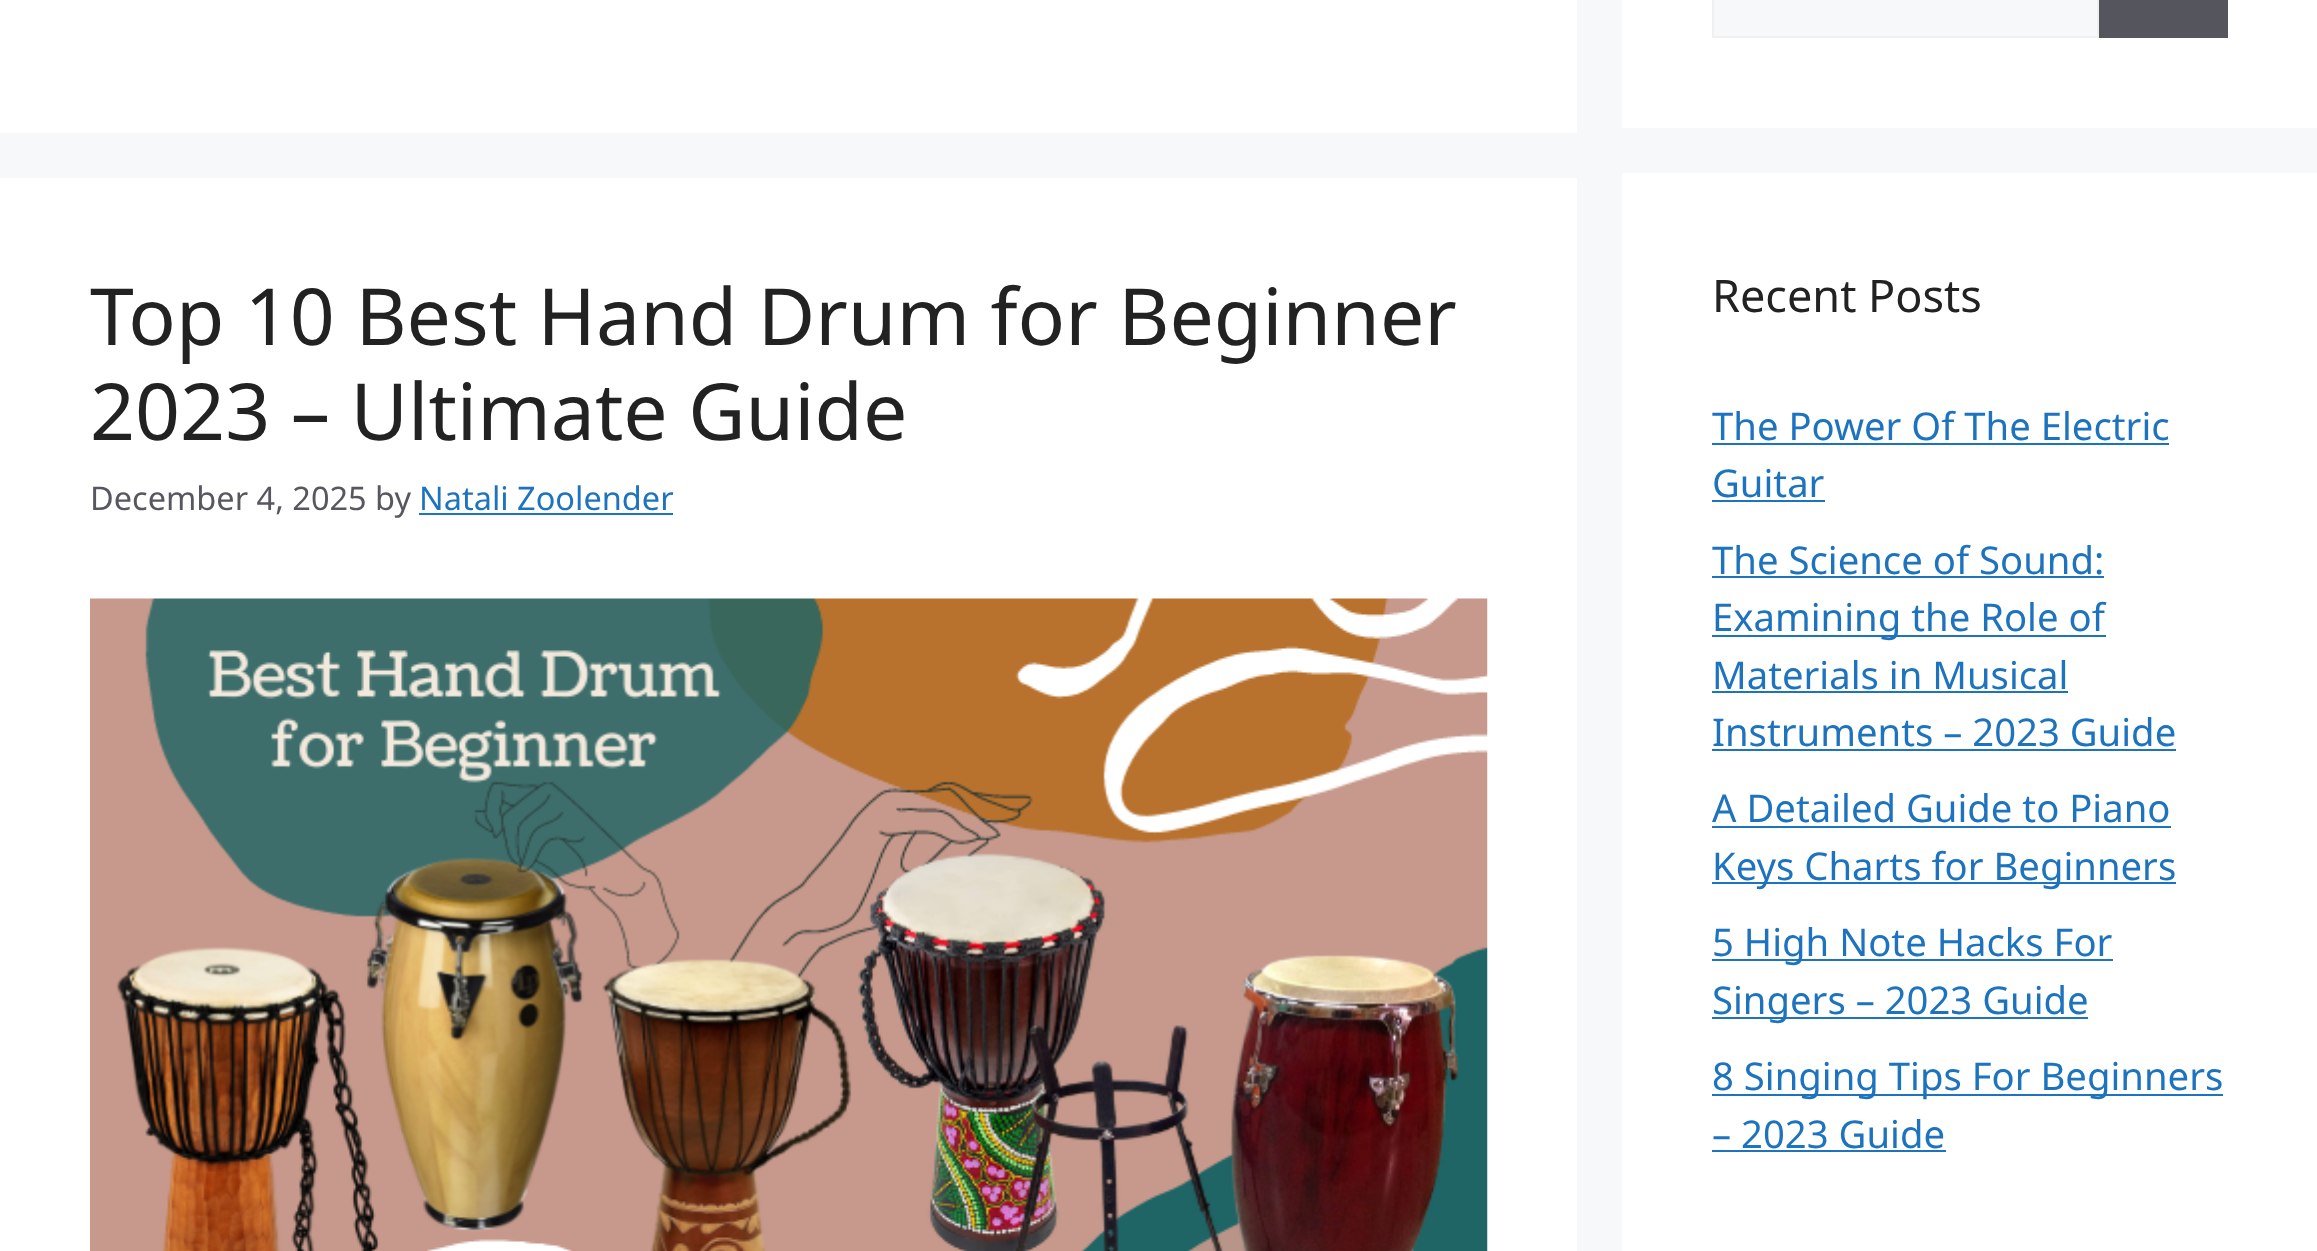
<svg xmlns="http://www.w3.org/2000/svg" width="2317" height="1251" viewBox="0 0 2317 1251">
  <rect width="100%" height="100%" fill="rgb(247,248,249)"/>
  <rect x="0" y="0" width="1577" height="133" fill="rgb(255,255,255)"/>
  <rect x="0" y="178" width="1577" height="1073" fill="rgb(255,255,255)"/>
  <g font-family="Noto Sans" font-size="78.75" fill="rgb(34,34,34)">
    <text>
      <tspan x="90" y="345">Top 10 Best Hand Drum for Beginner</tspan>
      <tspan x="90" y="440">2023 – Ultimate Guide</tspan>
    </text>
  </g>
  <text x="90" y="510" font-family="Noto Sans" font-size="32.5" fill="rgb(87,87,96)">December 4, 2025 by</text>
  <text x="419" y="510" font-family="Noto Sans" font-size="32.5" fill="rgb(30,115,190)">Natali Zoolender</text>
  <rect x="419" y="513" width="254" height="2" fill="rgb(30,115,190)"/>
  <image x="90" y="598" width="1398" height="653" href="pic1.png"/>
  <rect x="1622" y="0" width="695" height="128" fill="rgb(255,255,255)"/>
  <rect x="1713" y="-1" width="385" height="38" fill="rgb(247,248,249)" stroke="rgb(240,240,240)" stroke-width="2"/>
  <rect x="2099" y="0" width="129" height="38" fill="rgb(85,85,94)"/>
  <rect x="1622" y="173" width="695" height="1078" fill="rgb(255,255,255)"/>
  <text x="1712" y="312" font-family="Noto Sans" font-size="45" fill="rgb(34,34,34)">Recent Posts</text>
  <text x="1712" y="440" font-family="Noto Sans" font-size="38.25" fill="rgb(30,115,190)">The Power Of The Electric</text>
  <rect x="1712" y="443" width="457" height="2" fill="rgb(30,115,190)"/>
  <text x="1712" y="497" font-family="Noto Sans" font-size="38.25" fill="rgb(30,115,190)">Guitar</text>
  <rect x="1712" y="500" width="113" height="2" fill="rgb(30,115,190)"/>
  <text x="1712" y="574" font-family="Noto Sans" font-size="38.25" fill="rgb(30,115,190)">The Science of Sound:</text>
  <rect x="1712" y="576" width="392" height="2" fill="rgb(30,115,190)"/>
  <rect x="1712" y="635" width="394" height="2" fill="rgb(30,115,190)"/>
  <g font-family="Noto Sans" font-size="38.25" fill="rgb(30,115,190)">
    <text>
      <tspan x="1712" y="631">Examining the Role of</tspan>
      <tspan x="1712" y="689">Materials in Musical</tspan>
    </text>
  </g>
  <rect x="1712" y="691" width="356" height="2" fill="rgb(30,115,190)"/>
  <text x="1712" y="746" font-family="Noto Sans" font-size="38.25" fill="rgb(30,115,190)">Instruments – 2023 Guide</text>
  <rect x="1712" y="749" width="464" height="2" fill="rgb(30,115,190)"/>
  <text x="1712" y="822" font-family="Noto Sans" font-size="38.25" fill="rgb(30,115,190)">A Detailed Guide to Piano</text>
  <rect x="1712" y="826" width="459" height="2" fill="rgb(30,115,190)"/>
  <rect x="1712" y="882" width="464" height="2" fill="rgb(30,115,190)"/>
  <text x="1712" y="880" font-family="Noto Sans" font-size="38.25" fill="rgb(30,115,190)">Keys Charts for Beginners</text>
  <rect x="1712" y="959" width="401" height="2" fill="rgb(30,115,190)"/>
  <text x="1712" y="956" font-family="Noto Sans" font-size="38.25" fill="rgb(30,115,190)">5 High Note Hacks For</text>
  <rect x="1712" y="1017" width="376" height="2" fill="rgb(30,115,190)"/>
  <text x="1712" y="1014" font-family="Noto Sans" font-size="38.25" fill="rgb(30,115,190)">Singers – 2023 Guide</text>
  <rect x="1712" y="1094" width="511" height="2" fill="rgb(30,115,190)"/>
  <g font-family="Noto Sans" font-size="38.25" fill="rgb(30,115,190)">
    <text>
      <tspan x="1712" y="1090">8 Singing Tips For Beginners</tspan>
      <tspan x="1712" y="1148">– 2023 Guide</tspan>
    </text>
  </g>
  <rect x="1712" y="1150" width="234" height="2" fill="rgb(30,115,190)"/>
</svg>
